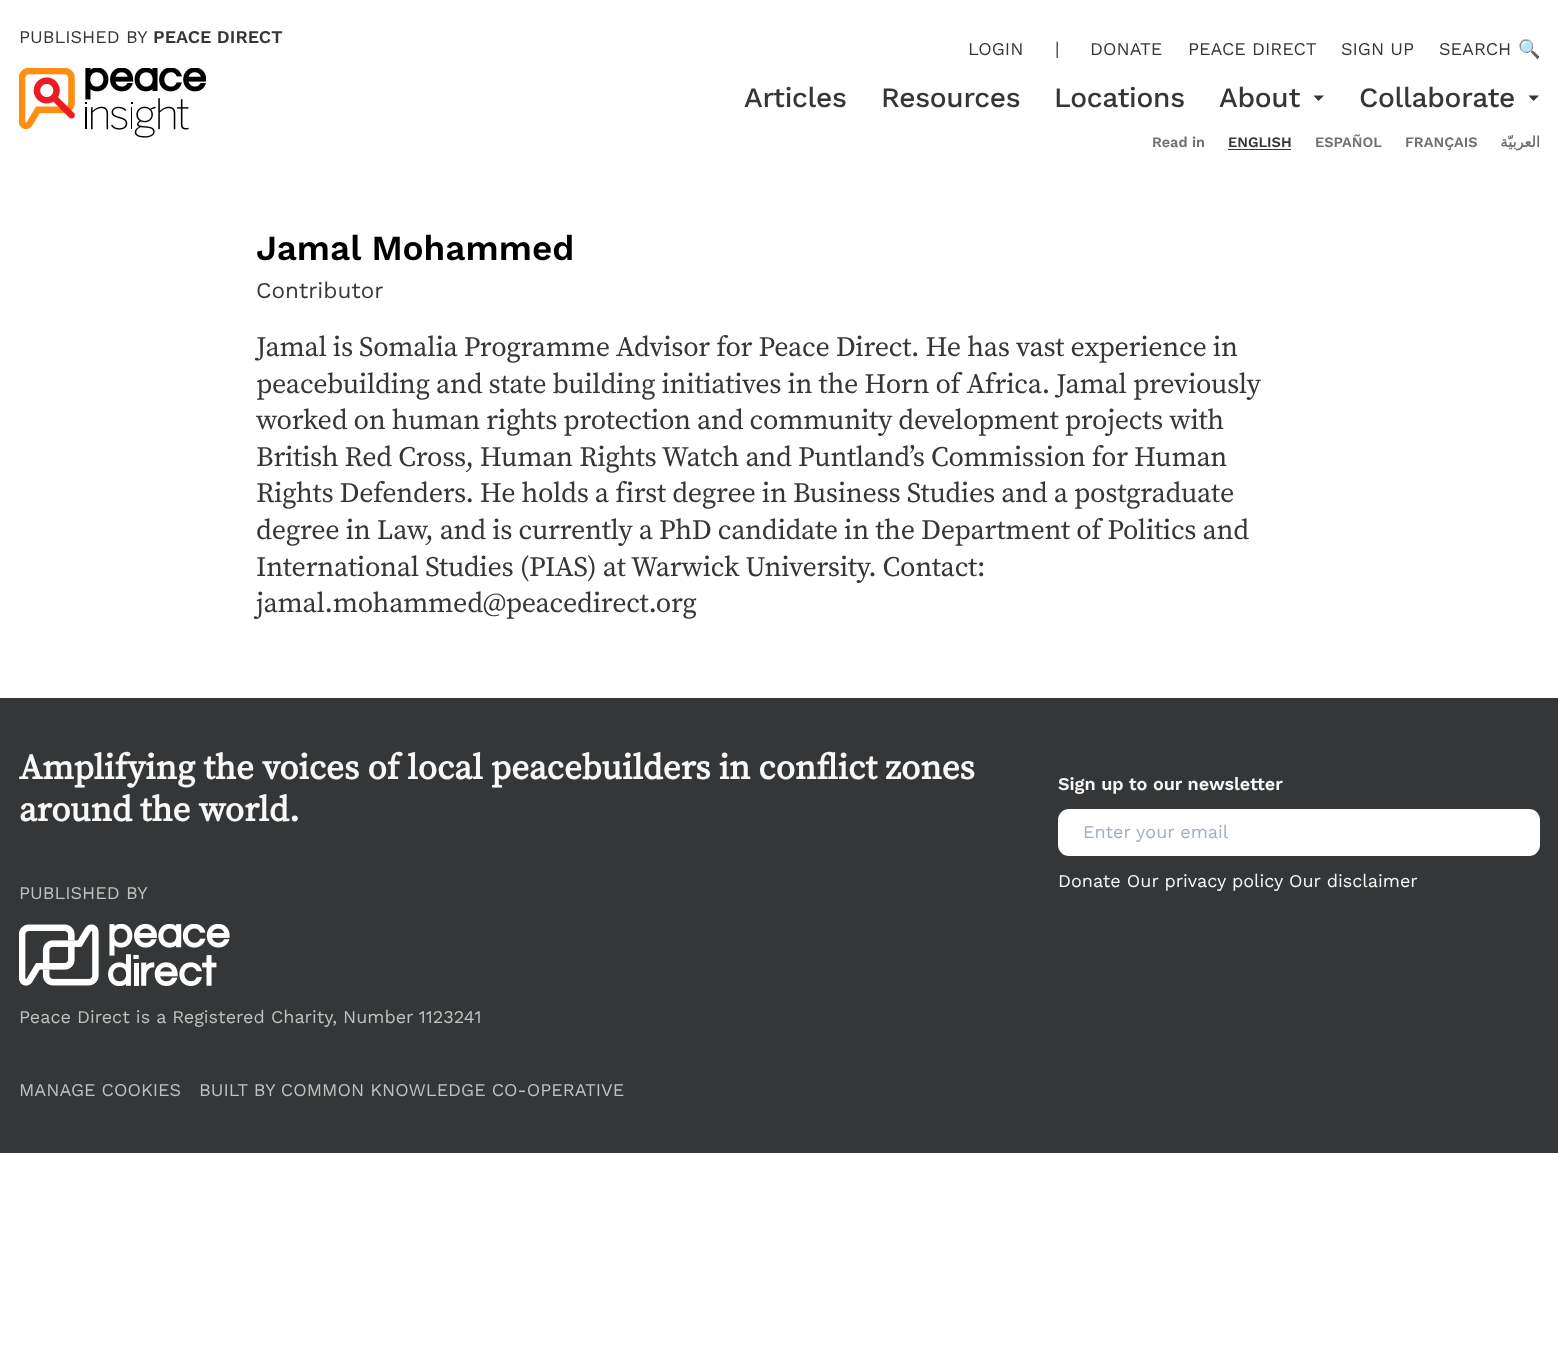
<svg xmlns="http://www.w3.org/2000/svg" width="1558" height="1355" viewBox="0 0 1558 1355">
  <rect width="100%" height="100%" fill="rgb(255,255,255)"/>
  <text x="19" y="43" font-family="Work Sans" font-size="18" fill="rgb(53,54,55)">PUBLISHED BY</text>
  <text x="153" y="43" font-family="Work Sans" font-size="18" font-weight="600" fill="rgb(53,54,55)">PEACE DIRECT</text>
  <image x="19" y="68" width="187" height="70" href="pic1.png"/>
  <g font-family="Work Sans" font-size="18" fill="rgb(53,54,55)">
    <text x="968" y="55">LOGIN</text>
    <text x="1055" y="55">|</text>
    <text x="1090" y="55">DONATE</text>
    <text x="1188" y="55">PEACE DIRECT</text>
    <text x="1341" y="55">SIGN UP</text>
    <text x="1439" y="55">SEARCH</text>
  </g>
  <text x="1518" y="55" font-family="Noto Color Emoji" font-size="18" fill="rgb(53,54,55)">🔍</text>
  <g font-family="Work Sans" font-size="28.1" font-weight="500" letter-spacing="-0.28" fill="rgb(53,54,55)">
    <text x="744" y="107">Articles</text>
    <text x="881" y="107">Resources</text>
    <text x="1054" y="107">Locations</text>
    <text x="1219" y="107">About</text>
  </g>
  <path d="M1313.5 95.5L1318.5 101L1324 95.5Z" fill="rgb(53,54,55)"/>
  <text x="1359" y="107" font-family="Work Sans" font-size="28.1" font-weight="500" letter-spacing="-0.28" fill="rgb(53,54,55)">Collaborate</text>
  <path d="M1528.5 95.5L1533.5 101L1539 95.5Z" fill="rgb(53,54,55)"/>
  <text x="1152" y="147" font-family="Work Sans" font-size="14.5" font-weight="600" fill="rgb(111,112,113)">Read in</text>
  <text x="1228" y="147" font-family="Work Sans" font-size="14.5" font-weight="600" fill="rgb(53,54,55)">ENGLISH</text>
  <rect x="1228" y="149" width="63" height="1" fill="rgb(53,54,55)"/>
  <g font-family="Work Sans" font-size="14.5" font-weight="600" fill="rgb(111,112,113)">
    <text x="1315" y="147">ESPAÑOL</text>
    <text x="1405" y="147">FRANÇAIS</text>
  </g>
  <text x="1540" y="147" font-family="DejaVu Sans" font-size="14.5" font-weight="bold" direction="rtl" fill="rgb(111,112,113)">العربيّة</text>
  <text x="256" y="260" font-family="Work Sans" font-size="35.15" font-weight="600" fill="rgb(0,0,0)">Jamal Mohammed</text>
  <text x="256" y="298" font-family="Work Sans" font-size="22.5" fill="rgb(53,54,55)">Contributor</text>
  <g font-family="Source Serif Pro" font-size="28.1" letter-spacing="-0.28" fill="rgb(53,54,55)">
    <text>
      <tspan x="256" y="356">Jamal is Somalia Programme Advisor for Peace Direct. He has vast experience in</tspan>
      <tspan x="256" y="393">peacebuilding and state building initiatives in the Horn of Africa. Jamal previously</tspan>
      <tspan x="256" y="429">worked on human rights protection and community development projects with</tspan>
      <tspan x="256" y="466">British Red Cross, Human Rights Watch and Puntland’s Commission for Human</tspan>
      <tspan x="256" y="502">Rights Defenders. He holds a first degree in Business Studies and a postgraduate</tspan>
      <tspan x="256" y="539">degree in Law, and is currently a PhD candidate in the Department of Politics and</tspan>
      <tspan x="256" y="576">International Studies (PIAS) at Warwick University. Contact:</tspan>
      <tspan x="256" y="612">jamal.mohammed@peacedirect.org</tspan>
    </text>
  </g>
  <rect x="0" y="698" width="1558" height="455" fill="rgb(53,54,55)"/>
  <g font-family="Source Serif Pro" font-size="35.15" font-weight="bold" fill="rgb(248,248,248)">
    <text>
      <tspan x="19" y="779">Amplifying the voices of local peacebuilders in conflict zones</tspan>
      <tspan x="19" y="821">around the world.</tspan>
    </text>
  </g>
  <text x="19" y="899" font-family="Work Sans" font-size="18" fill="rgb(192,193,193)">PUBLISHED BY</text>
  <image x="19" y="924" width="211" height="62" href="pic2.png"/>
  <g font-family="Work Sans" font-size="18" fill="rgb(192,193,193)">
    <text x="19" y="1023">Peace Direct is a Registered Charity, Number 1123241</text>
    <text x="19" y="1096">MANAGE COOKIES</text>
    <text x="199" y="1096">BUILT BY COMMON KNOWLEDGE CO-OPERATIVE</text>
  </g>
  <text x="1058" y="790" font-family="Work Sans" font-size="18" font-weight="600" fill="rgb(248,248,248)">Sign up to our newsletter</text>
  <rect x="1058" y="809" width="482" height="47" rx="11" fill="rgb(255,255,255)"/>
  <text x="1083" y="838" font-family="Work Sans" font-size="18" fill="rgb(160,174,192)">Enter your email</text>
  <text x="1058" y="887" font-family="Work Sans" font-size="18" fill="rgb(248,248,248)">Donate Our privacy policy Our disclaimer</text>
</svg>
